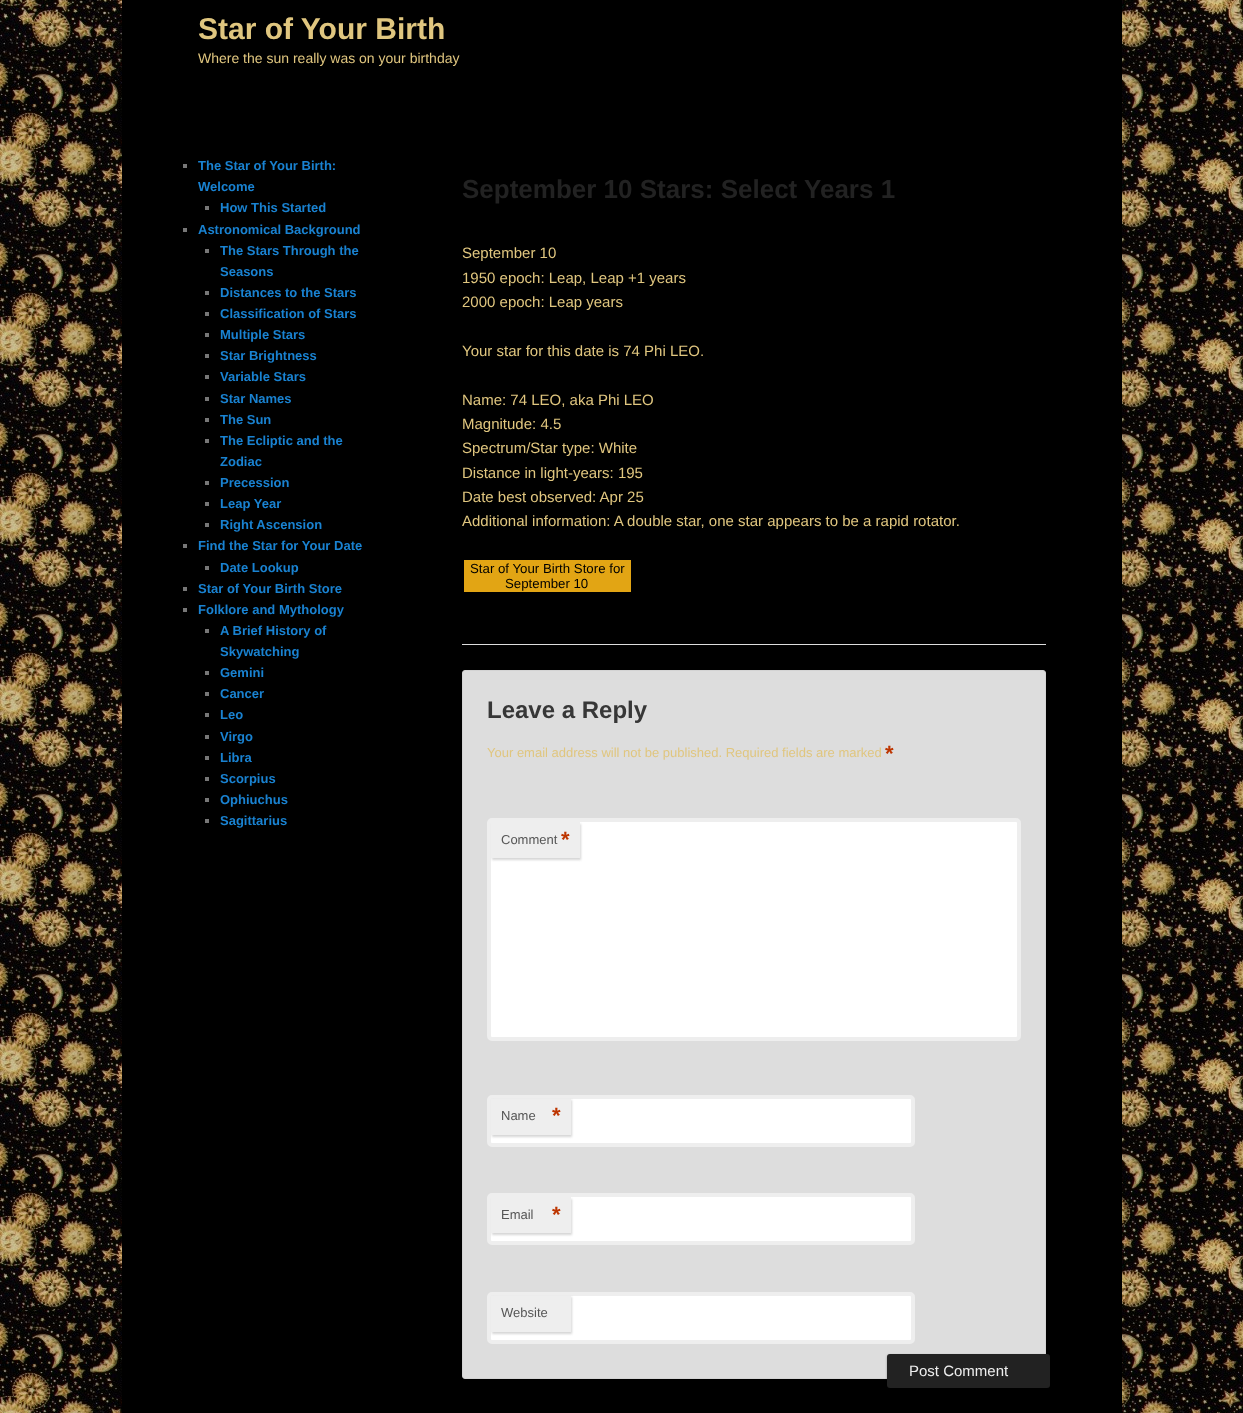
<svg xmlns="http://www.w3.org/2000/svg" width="1243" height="1413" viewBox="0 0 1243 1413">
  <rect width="100%" height="100%" fill="rgb(255,255,255)"/>
  <image x="0" y="0" width="1243" height="1413" href="pic1.png"/>
  <rect x="122" y="0" width="1000" height="1413" fill="rgb(0,0,0)"/>
  <text x="198" y="39" font-family="Liberation Sans" font-size="30" font-weight="bold" fill="rgb(224,198,127)">Star of Your Birth</text>
  <text x="198" y="63" font-family="Liberation Sans" font-size="14" fill="rgb(224,198,127)">Where the sun really was on your birthday</text>
  <rect x="183" y="164" width="4" height="4" fill="rgb(119,119,119)"/>
  <g font-family="Liberation Sans" font-size="13" font-weight="bold" fill="rgb(25,130,209)">
    <text>
      <tspan x="198" y="170">The Star of Your Birth:</tspan>
      <tspan x="198" y="191">Welcome</tspan>
    </text>
  </g>
  <rect x="205" y="206" width="4" height="4" fill="rgb(119,119,119)"/>
  <text x="220" y="212" font-family="Liberation Sans" font-size="13" font-weight="bold" fill="rgb(25,130,209)">How This Started</text>
  <rect x="183" y="228" width="4" height="4" fill="rgb(119,119,119)"/>
  <text x="198" y="234" font-family="Liberation Sans" font-size="13" font-weight="bold" fill="rgb(25,130,209)">Astronomical Background</text>
  <rect x="205" y="249" width="4" height="4" fill="rgb(119,119,119)"/>
  <g font-family="Liberation Sans" font-size="13" font-weight="bold" fill="rgb(25,130,209)">
    <text>
      <tspan x="220" y="255">The Stars Through the</tspan>
      <tspan x="220" y="276">Seasons</tspan>
    </text>
  </g>
  <rect x="205" y="291" width="4" height="4" fill="rgb(119,119,119)"/>
  <text x="220" y="297" font-family="Liberation Sans" font-size="13" font-weight="bold" fill="rgb(25,130,209)">Distances to the Stars</text>
  <rect x="205" y="312" width="4" height="4" fill="rgb(119,119,119)"/>
  <text x="220" y="318" font-family="Liberation Sans" font-size="13" font-weight="bold" fill="rgb(25,130,209)">Classification of Stars</text>
  <rect x="205" y="333" width="4" height="4" fill="rgb(119,119,119)"/>
  <text x="220" y="339" font-family="Liberation Sans" font-size="13" font-weight="bold" fill="rgb(25,130,209)">Multiple Stars</text>
  <rect x="205" y="354" width="4" height="4" fill="rgb(119,119,119)"/>
  <text x="220" y="360" font-family="Liberation Sans" font-size="13" font-weight="bold" fill="rgb(25,130,209)">Star Brightness</text>
  <rect x="205" y="375" width="4" height="4" fill="rgb(119,119,119)"/>
  <text x="220" y="381" font-family="Liberation Sans" font-size="13" font-weight="bold" fill="rgb(25,130,209)">Variable Stars</text>
  <rect x="205" y="397" width="4" height="4" fill="rgb(119,119,119)"/>
  <text x="220" y="403" font-family="Liberation Sans" font-size="13" font-weight="bold" fill="rgb(25,130,209)">Star Names</text>
  <rect x="205" y="418" width="4" height="4" fill="rgb(119,119,119)"/>
  <text x="220" y="424" font-family="Liberation Sans" font-size="13" font-weight="bold" fill="rgb(25,130,209)">The Sun</text>
  <rect x="205" y="439" width="4" height="4" fill="rgb(119,119,119)"/>
  <g font-family="Liberation Sans" font-size="13" font-weight="bold" fill="rgb(25,130,209)">
    <text>
      <tspan x="220" y="445">The Ecliptic and the</tspan>
      <tspan x="220" y="466">Zodiac</tspan>
    </text>
  </g>
  <rect x="205" y="481" width="4" height="4" fill="rgb(119,119,119)"/>
  <text x="220" y="487" font-family="Liberation Sans" font-size="13" font-weight="bold" fill="rgb(25,130,209)">Precession</text>
  <rect x="205" y="502" width="4" height="4" fill="rgb(119,119,119)"/>
  <text x="220" y="508" font-family="Liberation Sans" font-size="13" font-weight="bold" fill="rgb(25,130,209)">Leap Year</text>
  <rect x="205" y="523" width="4" height="4" fill="rgb(119,119,119)"/>
  <text x="220" y="529" font-family="Liberation Sans" font-size="13" font-weight="bold" fill="rgb(25,130,209)">Right Ascension</text>
  <rect x="183" y="544" width="4" height="4" fill="rgb(119,119,119)"/>
  <text x="198" y="550" font-family="Liberation Sans" font-size="13" font-weight="bold" fill="rgb(25,130,209)">Find the Star for Your Date</text>
  <rect x="205" y="566" width="4" height="4" fill="rgb(119,119,119)"/>
  <text x="220" y="572" font-family="Liberation Sans" font-size="13" font-weight="bold" fill="rgb(25,130,209)">Date Lookup</text>
  <rect x="183" y="587" width="4" height="4" fill="rgb(119,119,119)"/>
  <text x="198" y="593" font-family="Liberation Sans" font-size="13" font-weight="bold" fill="rgb(25,130,209)">Star of Your Birth Store</text>
  <rect x="183" y="608" width="4" height="4" fill="rgb(119,119,119)"/>
  <text x="198" y="614" font-family="Liberation Sans" font-size="13" font-weight="bold" fill="rgb(25,130,209)">Folklore and Mythology</text>
  <rect x="205" y="629" width="4" height="4" fill="rgb(119,119,119)"/>
  <g font-family="Liberation Sans" font-size="13" font-weight="bold" fill="rgb(25,130,209)">
    <text>
      <tspan x="220" y="635">A Brief History of</tspan>
      <tspan x="220" y="656">Skywatching</tspan>
    </text>
  </g>
  <rect x="205" y="671" width="4" height="4" fill="rgb(119,119,119)"/>
  <text x="220" y="677" font-family="Liberation Sans" font-size="13" font-weight="bold" fill="rgb(25,130,209)">Gemini</text>
  <rect x="205" y="692" width="4" height="4" fill="rgb(119,119,119)"/>
  <text x="220" y="698" font-family="Liberation Sans" font-size="13" font-weight="bold" fill="rgb(25,130,209)">Cancer</text>
  <rect x="205" y="713" width="4" height="4" fill="rgb(119,119,119)"/>
  <text x="220" y="719" font-family="Liberation Sans" font-size="13" font-weight="bold" fill="rgb(25,130,209)">Leo</text>
  <rect x="205" y="735" width="4" height="4" fill="rgb(119,119,119)"/>
  <text x="220" y="741" font-family="Liberation Sans" font-size="13" font-weight="bold" fill="rgb(25,130,209)">Virgo</text>
  <rect x="205" y="756" width="4" height="4" fill="rgb(119,119,119)"/>
  <text x="220" y="762" font-family="Liberation Sans" font-size="13" font-weight="bold" fill="rgb(25,130,209)">Libra</text>
  <rect x="205" y="777" width="4" height="4" fill="rgb(119,119,119)"/>
  <text x="220" y="783" font-family="Liberation Sans" font-size="13" font-weight="bold" fill="rgb(25,130,209)">Scorpius</text>
  <rect x="205" y="798" width="4" height="4" fill="rgb(119,119,119)"/>
  <text x="220" y="804" font-family="Liberation Sans" font-size="13" font-weight="bold" fill="rgb(25,130,209)">Ophiuchus</text>
  <rect x="205" y="819" width="4" height="4" fill="rgb(119,119,119)"/>
  <text x="220" y="825" font-family="Liberation Sans" font-size="13" font-weight="bold" fill="rgb(25,130,209)">Sagittarius</text>
  <rect x="462" y="644" width="584" height="1" fill="rgb(221,221,221)"/>
  <text x="462" y="198" font-family="Liberation Sans" font-size="26" font-weight="bold" fill="rgb(34,34,34)">September 10 Stars: Select Years 1</text>
  <g font-family="Liberation Sans" font-size="15" fill="rgb(224,198,127)">
    <text>
      <tspan x="462" y="258">September 10</tspan>
      <tspan x="462" y="283">1950 epoch: Leap, Leap +1 years</tspan>
      <tspan x="462" y="307">2000 epoch: Leap years</tspan>
    </text>
    <text x="462" y="356">Your star for this date is 74 Phi LEO.</text>
    <text>
      <tspan x="462" y="405">Name: 74 LEO, aka Phi LEO</tspan>
      <tspan x="462" y="429">Magnitude: 4.5</tspan>
      <tspan x="462" y="453">Spectrum/Star type: White</tspan>
      <tspan x="462" y="478">Distance in light-years: 195</tspan>
      <tspan x="462" y="502">Date best observed: Apr 25</tspan>
      <tspan x="462" y="526">Additional information: A double star, one star appears to be a rapid rotator.</tspan>
    </text>
  </g>
  <rect x="464" y="560" width="167" height="32" fill="rgb(226,165,20)"/>
  <g font-family="Liberation Sans" font-size="13.25" fill="rgb(0,0,0)">
    <text x="470" y="573">Star of Your Birth Store for</text>
    <text x="505" y="588">September 10</text>
  </g>
  <rect x="462.5" y="670.5" width="583" height="708" rx="2.5" fill="rgb(221,221,221)" stroke="rgb(211,211,211)"/>
  <text x="487" y="718" font-family="Liberation Sans" font-size="24" font-weight="bold" fill="rgb(55,55,55)">Leave a Reply</text>
  <text x="487" y="757" font-family="Liberation Sans" font-size="13" fill="rgb(224,198,127)">Your email address will not be published. Required fields are marked</text>
  <text x="885" y="761" font-family="Liberation Sans" font-size="22" font-weight="bold" fill="rgb(189,53,0)">*</text>
  <rect x="489" y="820" width="530" height="219" rx="3" fill="rgb(255,255,255)" stroke="rgb(238,238,238)" stroke-width="4"/>
  <rect x="492" y="824" width="89" height="36" fill="rgba(204,204,204,0.8)" filter="blur(1px)"/>
  <rect x="491" y="822" width="89" height="36" fill="rgb(238,238,238)"/>
  <text x="501" y="844" font-family="Liberation Sans" font-size="13" fill="rgb(85,85,85)">Comment</text>
  <text x="561" y="847" font-family="Liberation Sans" font-size="22" font-weight="bold" fill="rgb(189,53,0)">*</text>
  <rect x="489" y="1097" width="424" height="48" rx="3" fill="rgb(255,255,255)" stroke="rgb(238,238,238)" stroke-width="4"/>
  <rect x="492" y="1100" width="80" height="37" fill="rgba(204,204,204,0.8)" filter="blur(1px)"/>
  <rect x="491" y="1099" width="80" height="36" fill="rgb(238,238,238)"/>
  <text x="501" y="1120" font-family="Liberation Sans" font-size="13" fill="rgb(85,85,85)">Name</text>
  <text x="552" y="1123" font-family="Liberation Sans" font-size="22" font-weight="bold" fill="rgb(189,53,0)">*</text>
  <rect x="489" y="1195" width="424" height="48" rx="3" fill="rgb(255,255,255)" stroke="rgb(238,238,238)" stroke-width="4"/>
  <rect x="492" y="1199" width="80" height="36" fill="rgba(204,204,204,0.8)" filter="blur(1px)"/>
  <rect x="491" y="1197" width="80" height="36" fill="rgb(238,238,238)"/>
  <text x="501" y="1219" font-family="Liberation Sans" font-size="13" fill="rgb(85,85,85)">Email</text>
  <text x="552" y="1222" font-family="Liberation Sans" font-size="22" font-weight="bold" fill="rgb(189,53,0)">*</text>
  <rect x="489" y="1294" width="424" height="48" rx="3" fill="rgb(255,255,255)" stroke="rgb(238,238,238)" stroke-width="4"/>
  <rect x="492" y="1297" width="80" height="37" fill="rgba(204,204,204,0.8)" filter="blur(1px)"/>
  <rect x="491" y="1296" width="80" height="36" fill="rgb(238,238,238)"/>
  <text x="501" y="1317" font-family="Liberation Sans" font-size="13" fill="rgb(85,85,85)">Website</text>
  <rect x="887" y="1355" width="163" height="34" rx="3" fill="rgba(0,0,0,0.3)" filter="blur(1px)"/>
  <rect x="887" y="1354" width="163" height="34" rx="3" fill="rgb(34,34,34)"/>
  <text x="909" y="1376" font-family="Liberation Sans" font-size="15" fill="rgb(238,238,238)">Post Comment</text>
</svg>
